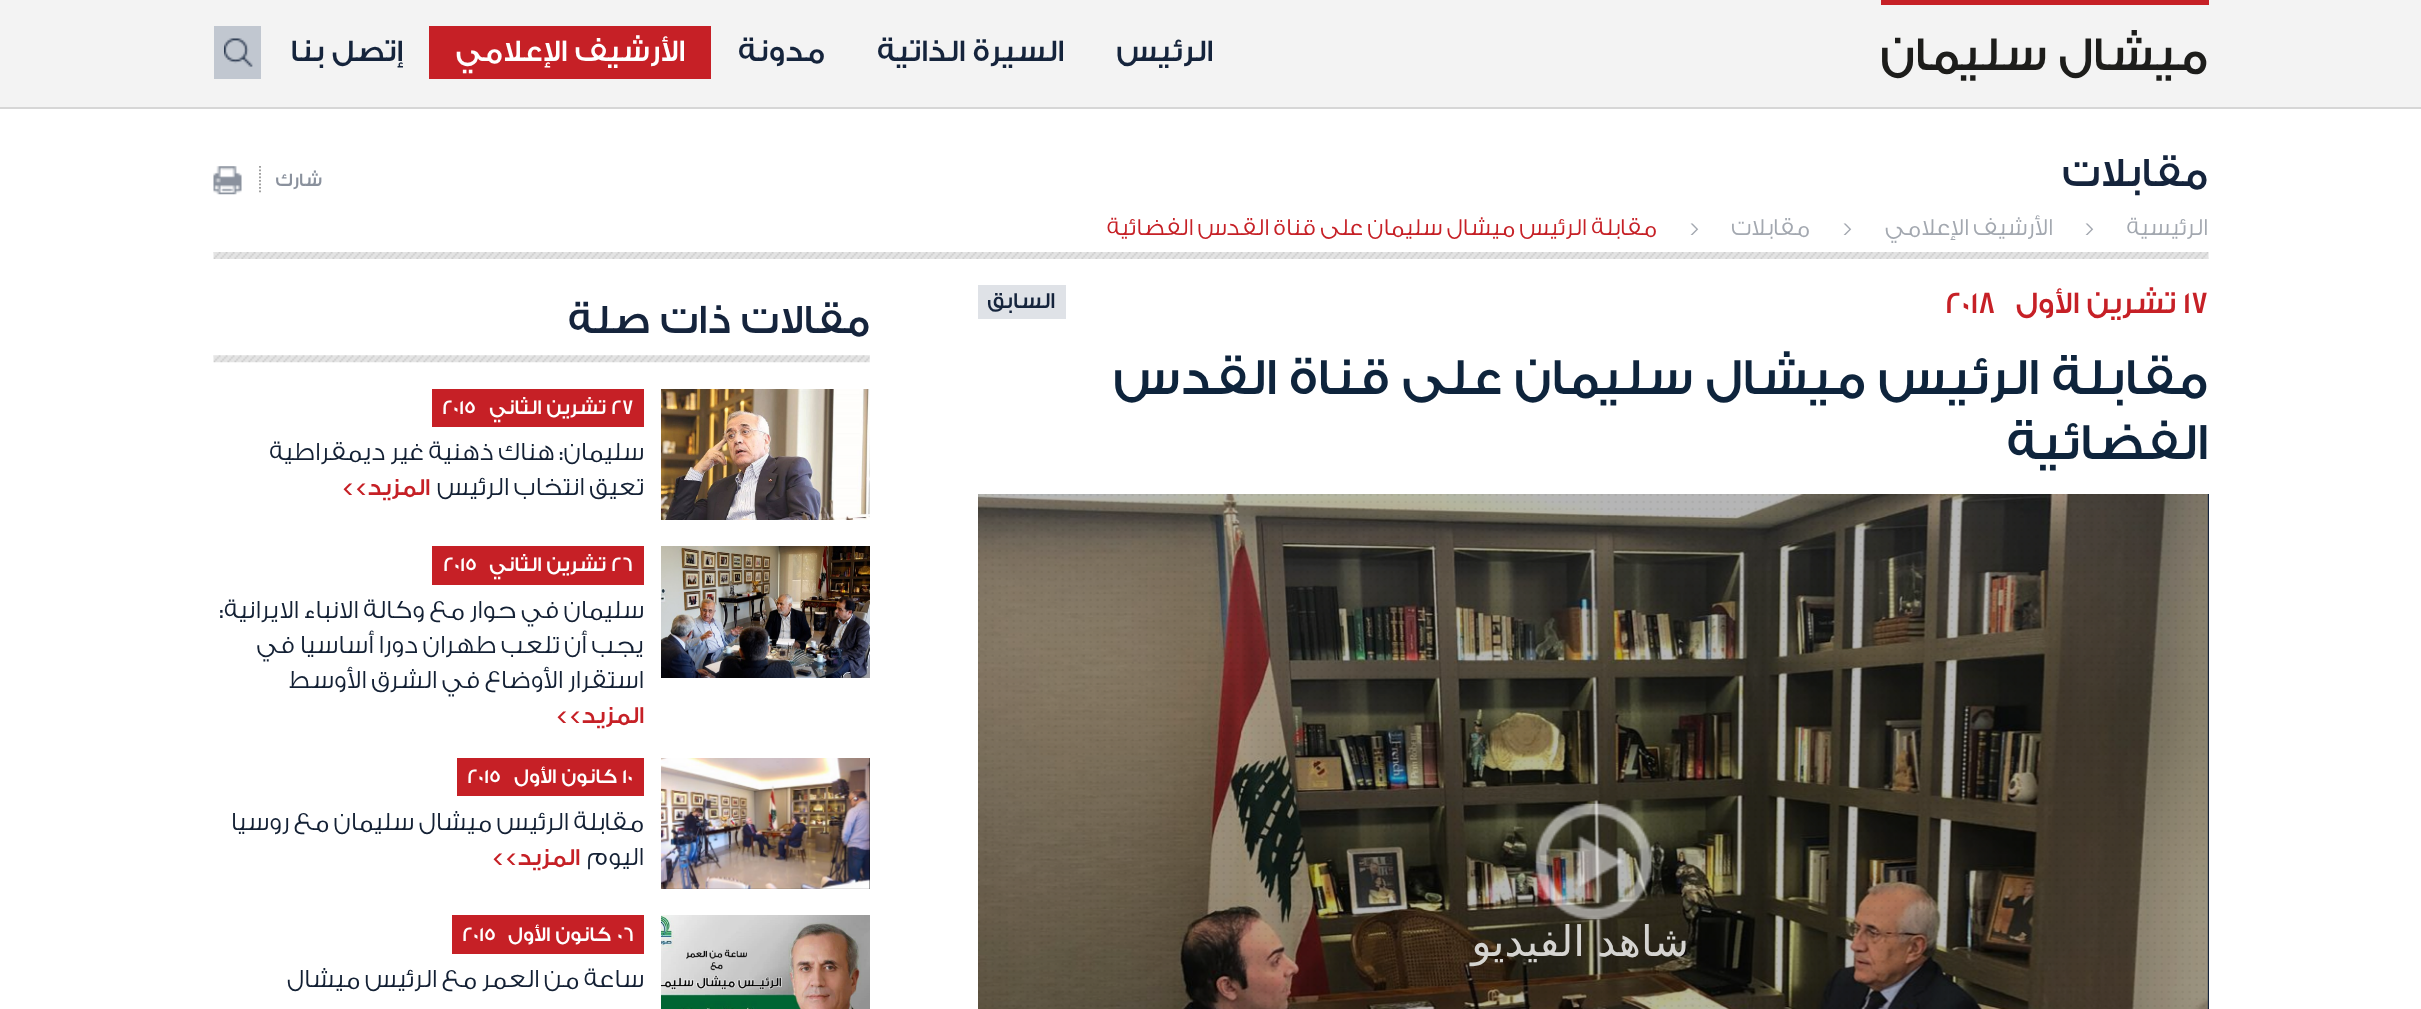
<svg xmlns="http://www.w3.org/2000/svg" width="2421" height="1009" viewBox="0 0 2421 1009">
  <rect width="100%" height="100%" fill="rgb(255,255,255)"/>
  <rect x="0" y="0" width="2421" height="107" fill="rgb(243,243,243)"/>
  <rect x="0" y="107" width="2421" height="2" fill="rgb(214,214,214)"/>
  <rect x="1881" y="0" width="328" height="5" fill="rgb(198,32,38)"/>
  <g font-family="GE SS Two" font-size="49" font-weight="500" direction="rtl" fill="rgb(29,29,27)">
    <text x="2208" y="70">ميشال</text>
    <text x="2047" y="70">سليمان</text>
  </g>
  <g font-family="GE SS Two" font-size="31.5" font-weight="500" direction="rtl" fill="rgb(21,36,60)">
    <text x="1213" y="61">الرئيس</text>
    <text x="1064" y="61">السيرة الذاتية</text>
    <text x="825" y="61">مدونة</text>
  </g>
  <rect x="429" y="26" width="282" height="53" fill="rgb(198,32,38)"/>
  <text x="685" y="61" font-family="GE SS Two" font-size="31.5" font-weight="500" direction="rtl" fill="rgb(255,255,255)">الأرشيف الإعلامي</text>
  <text x="403" y="61" font-family="GE SS Two" font-size="31.5" font-weight="500" direction="rtl" fill="rgb(21,36,60)">إتصل بنا</text>
  <rect x="214" y="26" width="47" height="53" fill="rgb(193,199,208)"/>
  <image x="224" y="38" width="29" height="29" href="pic1.png"/>
  <text x="2208" y="186" font-family="GE SS Two" font-size="42" font-weight="500" direction="rtl" fill="rgb(21,36,60)">مقابلات</text>
  <text x="2208" y="235" font-family="GE SS Two" font-size="24.5" font-weight="300" direction="rtl" fill="rgb(163,168,176)">الرئيسية</text>
  <text x="2083" y="235" font-family="GE SS Two" font-size="24.5" font-weight="300" fill="rgb(163,168,176)">&gt;</text>
  <text x="2053" y="235" font-family="GE SS Two" font-size="24.5" font-weight="300" direction="rtl" fill="rgb(163,168,176)">الأرشيف الإعلامي</text>
  <text x="1841" y="235" font-family="GE SS Two" font-size="24.5" font-weight="300" fill="rgb(163,168,176)">&gt;</text>
  <text x="1810" y="235" font-family="GE SS Two" font-size="24.5" font-weight="300" direction="rtl" fill="rgb(163,168,176)">مقابلات</text>
  <text x="1688" y="235" font-family="GE SS Two" font-size="24.5" font-weight="300" fill="rgb(163,168,176)">&gt;</text>
  <text x="1657" y="235" font-family="GE SS Two" font-size="24.5" font-weight="300" direction="rtl" fill="rgb(198,32,38)">مقابلة الرئيس ميشال سليمان على قناة القدس الفضائية</text>
  <text x="322" y="186" font-family="GE SS Two" font-size="19" font-weight="500" direction="rtl" fill="rgb(138,145,157)">شارك</text>
  <path d="M260 166V192.5" fill="none" stroke="rgb(150,150,150)" stroke-width="1.8" stroke-dasharray="1.75 1.75"/>
  <image x="213" y="166" width="29" height="29" href="pic2.png"/>
  <image x="213" y="252" width="1996" height="7" href="pic3.png"/>
  <text x="2183" y="313" font-family="GE SS Two" font-size="31.5" font-weight="500" fill="rgb(198,32,38)">17</text>
  <text x="2176" y="313" font-family="GE SS Two" font-size="31.5" font-weight="500" direction="rtl" fill="rgb(198,32,38)">تشرين الأول</text>
  <text x="1945" y="313" font-family="GE SS Two" font-size="31.5" font-weight="500" fill="rgb(198,32,38)">2018</text>
  <rect x="978" y="285" width="88" height="34" fill="rgb(223,226,231)"/>
  <text x="1055" y="308" font-family="GE SS Two" font-size="23" font-weight="500" direction="rtl" fill="rgb(21,36,60)">السابق</text>
  <g font-family="GE SS Two" font-size="52.5" font-weight="500" direction="rtl" fill="rgb(14,36,60)">
    <text>
      <tspan x="2208" y="394">مقابلة الرئيس ميشال سليمان على قناة القدس</tspan>
      <tspan x="2208" y="459">الفضائية</tspan>
    </text>
  </g>
  <rect x="2207" y="494" width="2" height="515" fill="rgb(21,36,60)"/>
  <image x="978" y="494" width="1230" height="515" href="pic4.png"/>
  <image x="978" y="494" width="1230" height="515" href="pic5.png"/>
  <image x="1535" y="803" width="117" height="117" href="pic6.png"/>
  <g font-family="DejaVu Sans" font-size="42" direction="rtl" fill="rgb(213,212,209)">
    <text x="1689" y="956">شاهد</text>
    <text x="1585" y="956">الفيديو</text>
  </g>
  <text x="870" y="333" font-family="GE SS Two" font-size="42" font-weight="500" direction="rtl" fill="rgb(21,36,60)">مقالات ذات صلة</text>
  <image x="213" y="355" width="657" height="8" href="pic7.png"/>
  <image x="661" y="389" width="209" height="131" href="pic8.png"/>
  <rect x="432" y="389" width="212" height="38" fill="rgb(198,32,38)"/>
  <text x="611" y="414" font-family="GE SS Two" font-size="21" font-weight="500" fill="rgb(255,255,255)">27</text>
  <text x="606" y="414" font-family="GE SS Two" font-size="21" font-weight="500" direction="rtl" fill="rgb(255,255,255)">تشرين الثاني</text>
  <text x="442" y="414" font-family="GE SS Two" font-size="21" font-weight="500" fill="rgb(255,255,255)">2015</text>
  <g font-family="GE SS Two" font-size="26.25" font-weight="300" direction="rtl" fill="rgb(19,32,52)">
    <text>
      <tspan x="644" y="460">سليمان: هناك ذهنية غير ديمقراطية</tspan>
      <tspan x="644" y="495">تعيق انتخاب الرئيس</tspan>
    </text>
  </g>
  <text x="430" y="495" font-family="GE SS Two" font-size="24.5" font-weight="500" direction="rtl" fill="rgb(198,32,38)">المزيد&gt;&gt;</text>
  <image x="661" y="546" width="209" height="132" href="pic9.png"/>
  <rect x="432" y="546" width="212" height="39" fill="rgb(198,32,38)"/>
  <text x="611" y="571" font-family="GE SS Two" font-size="21" font-weight="500" fill="rgb(255,255,255)">26</text>
  <text x="606" y="571" font-family="GE SS Two" font-size="21" font-weight="500" direction="rtl" fill="rgb(255,255,255)">تشرين الثاني</text>
  <text x="443" y="571" font-family="GE SS Two" font-size="21" font-weight="500" fill="rgb(255,255,255)">2015</text>
  <g font-family="GE SS Two" font-size="26.25" font-weight="300" direction="rtl" fill="rgb(19,32,52)">
    <text>
      <tspan x="644" y="618">سليمان في حوار مع وكالة الانباء الايرانية:</tspan>
      <tspan x="644" y="653">يجب أن تلعب طهران دورا أساسيا في</tspan>
      <tspan x="644" y="688">استقرار الأوضاع في الشرق الأوسط</tspan>
    </text>
  </g>
  <text x="644" y="723" font-family="GE SS Two" font-size="24.5" font-weight="500" direction="rtl" fill="rgb(198,32,38)">المزيد&gt;&gt;</text>
  <rect x="662" y="758" width="208" height="131" fill="rgb(0,0,0)"/>
  <image x="661" y="758" width="209" height="131" href="pic10.png"/>
  <rect x="457" y="758" width="187" height="38" fill="rgb(198,32,38)"/>
  <text x="622" y="783" font-family="GE SS Two" font-size="21" font-weight="500" fill="rgb(255,255,255)">10</text>
  <text x="617" y="783" font-family="GE SS Two" font-size="21" font-weight="500" direction="rtl" fill="rgb(255,255,255)">كانون الأول</text>
  <text x="467" y="783" font-family="GE SS Two" font-size="21" font-weight="500" fill="rgb(255,255,255)">2015</text>
  <g font-family="GE SS Two" font-size="26.25" font-weight="300" direction="rtl" fill="rgb(19,32,52)">
    <text>
      <tspan x="644" y="830">مقابلة الرئيس ميشال سليمان مع روسيا</tspan>
      <tspan x="644" y="865">اليوم</tspan>
    </text>
  </g>
  <text x="580" y="865" font-family="GE SS Two" font-size="24.5" font-weight="500" direction="rtl" fill="rgb(198,32,38)">المزيد&gt;&gt;</text>
  <image x="661" y="915" width="209" height="94" href="pic11.png"/>
  <rect x="452" y="915" width="192" height="39" fill="rgb(198,32,38)"/>
  <text x="617" y="941" font-family="GE SS Two" font-size="21" font-weight="500" fill="rgb(255,255,255)">06</text>
  <text x="611" y="941" font-family="GE SS Two" font-size="21" font-weight="500" direction="rtl" fill="rgb(255,255,255)">كانون الأول</text>
  <text x="462" y="941" font-family="GE SS Two" font-size="21" font-weight="500" fill="rgb(255,255,255)">2015</text>
  <text x="644" y="987" font-family="GE SS Two" font-size="26.25" font-weight="300" direction="rtl" fill="rgb(19,32,52)">ساعة من العمر مع الرئيس ميشال</text>
</svg>
